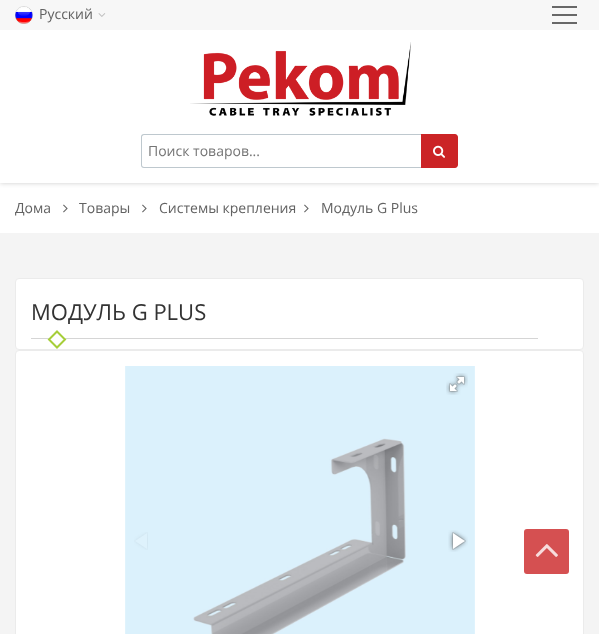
<svg xmlns="http://www.w3.org/2000/svg" width="599" height="634" viewBox="0 0 599 634">
  <rect width="100%" height="100%" fill="rgb(244,244,244)"/>
  <rect x="0" y="183" width="599" height="50" fill="rgb(255,255,255)"/>
  <rect x="0" y="0" width="599" height="183" fill="rgba(0,0,0,0.2)" filter="blur(2.5px)"/>
  <rect x="0" y="30" width="599" height="153" fill="rgb(255,255,255)"/>
  <rect x="0" y="0" width="599" height="30" fill="rgb(247,247,247)"/>
  <image x="15" y="6" width="18" height="18" href="pic1.png"/>
  <text x="39" y="19" font-family="Open Sans" font-size="14" fill="rgb(98,98,98)">Русский</text>
  <image x="98" y="13" width="8" height="4" href="pic2.png"/>
  <rect x="552" y="14" width="25" height="2" fill="rgb(104,104,104)"/>
  <rect x="552" y="6" width="25" height="2" fill="rgb(104,104,104)"/>
  <rect x="552" y="22" width="25" height="2" fill="rgb(104,104,104)"/>
  <image x="190" y="42" width="221" height="74" href="pic3.png"/>
  <path d="M144 134H421V168H144C142 168 141 167 141 165V137C141 135 142 134 144 134ZM144 135H421V167H144C143 167 142 166 142 165V137C142 136 143 135 144 135Z" fill="rgb(190,200,206)" fill-rule="evenodd"/>
  <text x="148" y="156" font-family="Open Sans" font-size="14" fill="rgb(117,117,117)">Поиск товаров...</text>
  <path d="M421 134H455C456.5 134 458 135.5 458 137V165C458 166.5 456.5 168 455 168H421Z" fill="rgb(203,36,38)"/>
  <image x="433" y="145" width="12" height="13" href="pic4.png"/>
  <text x="15" y="213" font-family="Open Sans" font-size="14" fill="rgb(98,98,98)">Дома</text>
  <image x="63" y="204" width="5" height="9" href="pic5.png"/>
  <text x="79" y="213" font-family="Open Sans" font-size="14" fill="rgb(98,98,98)">Товары</text>
  <image x="142" y="204" width="5" height="9" href="pic5.png"/>
  <text x="159" y="213" font-family="Open Sans" font-size="14" fill="rgb(98,98,98)">Системы крепления</text>
  <image x="304" y="204" width="5" height="9" href="pic5.png"/>
  <text x="321" y="213" font-family="Open Sans" font-size="14" fill="rgb(98,98,98)">Модуль G Plus</text>
  <rect x="15.5" y="278.5" width="568" height="71" rx="3.5" fill="rgb(255,255,255)" stroke="rgb(235,235,235)"/>
  <rect x="31" y="338" width="507" height="1" fill="rgb(213,213,213)"/>
  <text x="31" y="320" font-family="Open Sans" font-size="22" fill="rgb(51,51,51)">МОДУЛЬ G PLUS</text>
  <path d="M57 330.5L66 339.5L57 348.5L48 339.5Z" fill="rgb(255,255,255)"/>
  <path d="M57 331.5L65 339.5L57 347.5L49 339.5Z" fill="none" stroke="rgb(166,206,57)" stroke-width="2"/>
  <rect x="15.5" y="350.5" width="568" height="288" rx="3.5" fill="rgb(255,255,255)" stroke="rgb(235,235,235)"/>
  <image x="125" y="366" width="350" height="268" href="pic6.png"/>
  <image x="446" y="373" width="22" height="22" href="pic7.png"/>
  <image x="134" y="532" width="14" height="18" href="pic8.png"/>
  <image x="448" y="530" width="20" height="22" href="pic9.png"/>
  <rect x="524" y="529" width="45" height="45" rx="3" fill="rgb(213,80,81)"/>
  <image x="535" y="544" width="23" height="13" href="pic10.png"/>
</svg>
